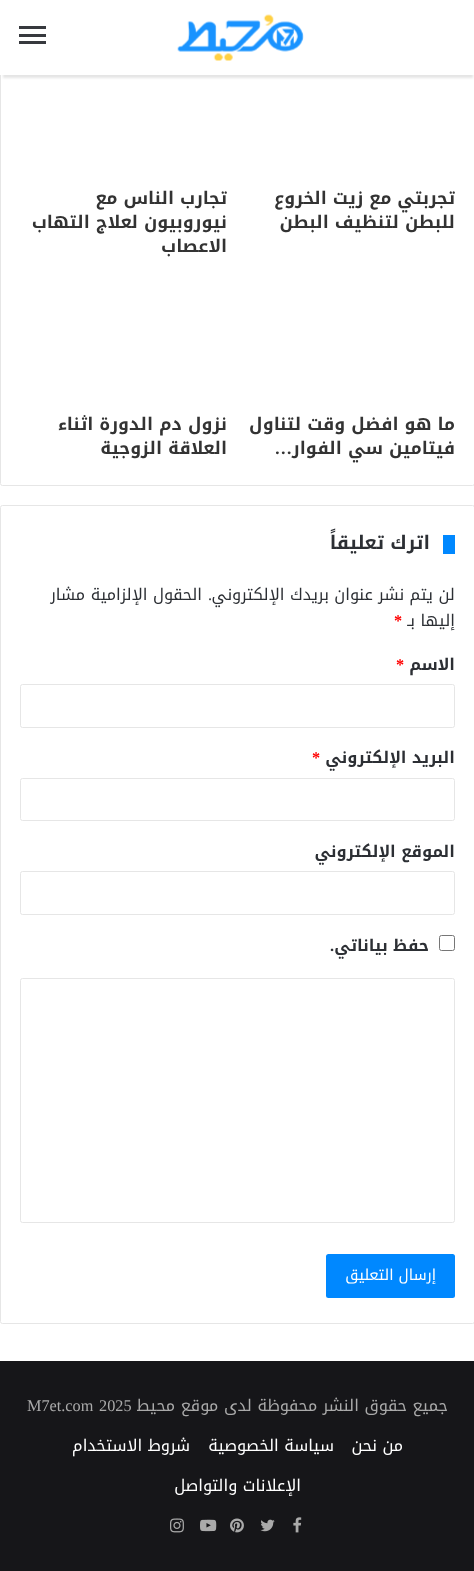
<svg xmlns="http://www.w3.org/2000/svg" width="474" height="1571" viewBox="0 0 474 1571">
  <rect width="100%" height="100%" fill="rgb(255,255,255)"/>
  <rect x="0.5" y="-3.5" width="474" height="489" rx="2" fill="none" stroke="rgb(230,230,230)"/>
  <rect x="3" y="8" width="470" height="70" fill="rgba(0,0,0,0.1)" filter="blur(1px)"/>
  <rect x="0" y="0" width="474" height="75" fill="rgb(255,255,255)"/>
  <image x="177" y="14" width="127" height="47" href="pic1.png"/>
  <rect x="19" y="34" width="27" height="3" fill="rgb(55,57,62)"/>
  <rect x="19" y="26" width="27" height="3" fill="rgb(55,57,62)"/>
  <rect x="19" y="41" width="27" height="3" fill="rgb(55,57,62)"/>
  <g font-family="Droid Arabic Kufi" font-size="17.5" font-weight="bold" direction="rtl" fill="rgb(51,51,51)">
    <text>
      <tspan x="455" y="204">تجربتي مع زيت الخروع</tspan>
      <tspan x="455" y="228">للبطن لتنظيف البطن</tspan>
    </text>
    <text>
      <tspan x="227" y="204">تجارب الناس مع</tspan>
      <tspan x="227" y="228">نيوروبيون لعلاج التهاب</tspan>
      <tspan x="227" y="252">الاعصاب</tspan>
    </text>
    <text>
      <tspan x="455" y="430">ما هو افضل وقت لتناول</tspan>
      <tspan x="455" y="454">فيتامين سي الفوار</tspan>
    </text>
  </g>
  <text x="292" y="454" font-family="Liberation Serif" font-size="17.5" font-weight="bold" direction="rtl" fill="rgb(51,51,51)">…</text>
  <g font-family="Droid Arabic Kufi" font-size="17.5" font-weight="bold" direction="rtl" fill="rgb(51,51,51)">
    <text>
      <tspan x="227" y="430">نزول دم الدورة اثناء</tspan>
      <tspan x="227" y="454">العلاقة الزوجية</tspan>
    </text>
  </g>
  <rect x="0.5" y="505.5" width="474" height="818" rx="2" fill="none" stroke="rgb(230,230,230)"/>
  <rect x="443" y="535" width="12" height="19" fill="rgb(0,136,255)"/>
  <text x="430" y="549" font-family="Droid Arabic Kufi" font-size="18.75" font-weight="bold" direction="rtl" fill="rgb(44,47,52)">اترك تعليقاً</text>
  <text x="455" y="600" font-family="Droid Arabic Kufi" font-size="16.25" direction="rtl" fill="rgb(44,47,52)">لن يتم نشر عنوان بريدك الإلكتروني</text>
  <text x="212" y="600" font-family="Liberation Serif" font-size="16.25" direction="rtl" fill="rgb(44,47,52)">.</text>
  <g font-family="Droid Arabic Kufi" font-size="16.25" direction="rtl" fill="rgb(44,47,52)">
    <text x="202" y="600">الحقول الإلزامية مشار</text>
    <text x="455" y="626">إليها بـ</text>
  </g>
  <text x="394" y="626" font-family="Liberation Serif" font-size="16.25" font-weight="bold" fill="rgb(255,0,0)">*</text>
  <text x="455" y="670" font-family="Droid Arabic Kufi" font-size="16.25" font-weight="bold" direction="rtl" fill="rgb(44,47,52)">الاسم</text>
  <text x="396" y="670" font-family="Liberation Serif" font-size="16.25" font-weight="bold" fill="rgb(255,0,0)">*</text>
  <rect x="20.5" y="684.5" width="434" height="43" rx="2" fill="none" stroke="rgb(230,230,230)"/>
  <text x="455" y="763" font-family="Droid Arabic Kufi" font-size="16.25" font-weight="bold" direction="rtl" fill="rgb(44,47,52)">البريد الإلكتروني</text>
  <text x="312" y="763" font-family="Liberation Serif" font-size="16.25" font-weight="bold" fill="rgb(255,0,0)">*</text>
  <rect x="20.5" y="778.5" width="434" height="42" rx="2" fill="none" stroke="rgb(230,230,230)"/>
  <text x="455" y="857" font-family="Droid Arabic Kufi" font-size="16.25" font-weight="bold" direction="rtl" fill="rgb(44,47,52)">الموقع الإلكتروني</text>
  <rect x="20.5" y="871.5" width="434" height="43" rx="2" fill="none" stroke="rgb(230,230,230)"/>
  <rect x="439.5" y="935.5" width="15" height="15" rx="2" fill="none" stroke="rgb(118,118,118)"/>
  <text x="429" y="951" font-family="Droid Arabic Kufi" font-size="16.25" font-weight="bold" direction="rtl" fill="rgb(44,47,52)">حفظ بياناتي</text>
  <text x="334" y="951" font-family="Liberation Serif" font-size="16.25" font-weight="bold" direction="rtl" fill="rgb(44,47,52)">.</text>
  <rect x="20.5" y="978.5" width="434" height="244" rx="2" fill="none" stroke="rgb(230,230,230)"/>
  <rect x="326" y="1254" width="129" height="44" rx="2.5" fill="rgb(0,136,255)"/>
  <text x="436" y="1280" font-family="Droid Arabic Kufi" font-size="15" direction="rtl" fill="rgb(255,255,255)">إرسال التعليق</text>
  <rect x="0" y="1361" width="474" height="210" fill="rgb(22,22,25)"/>
  <text x="448" y="1411" font-family="Droid Arabic Kufi" font-size="16.25" direction="rtl" fill="rgb(170,170,170)">جميع حقوق النشر محفوظة لدى موقع محيط</text>
  <g font-family="Liberation Serif" font-size="16.25" fill="rgb(170,170,170)">
    <text x="99" y="1411">2025</text>
    <text x="27" y="1411">M7et.com</text>
  </g>
  <g font-family="Droid Arabic Kufi" font-size="16.25" direction="rtl" fill="rgb(255,255,255)">
    <text x="403" y="1451">من نحن</text>
    <text x="334" y="1451">سياسة الخصوصية</text>
    <text x="190" y="1451">شروط الاستخدام</text>
    <text x="301" y="1491">الإعلانات والتواصل</text>
  </g>
  <image x="293" y="1517" width="9" height="16" href="pic2.png"/>
  <image x="260" y="1519" width="15" height="13" href="pic3.png"/>
  <image x="230" y="1518" width="14" height="15" href="pic4.png"/>
  <image x="200" y="1519" width="17" height="13" href="pic5.png"/>
  <image x="170" y="1518" width="14" height="15" href="pic6.png"/>
</svg>
